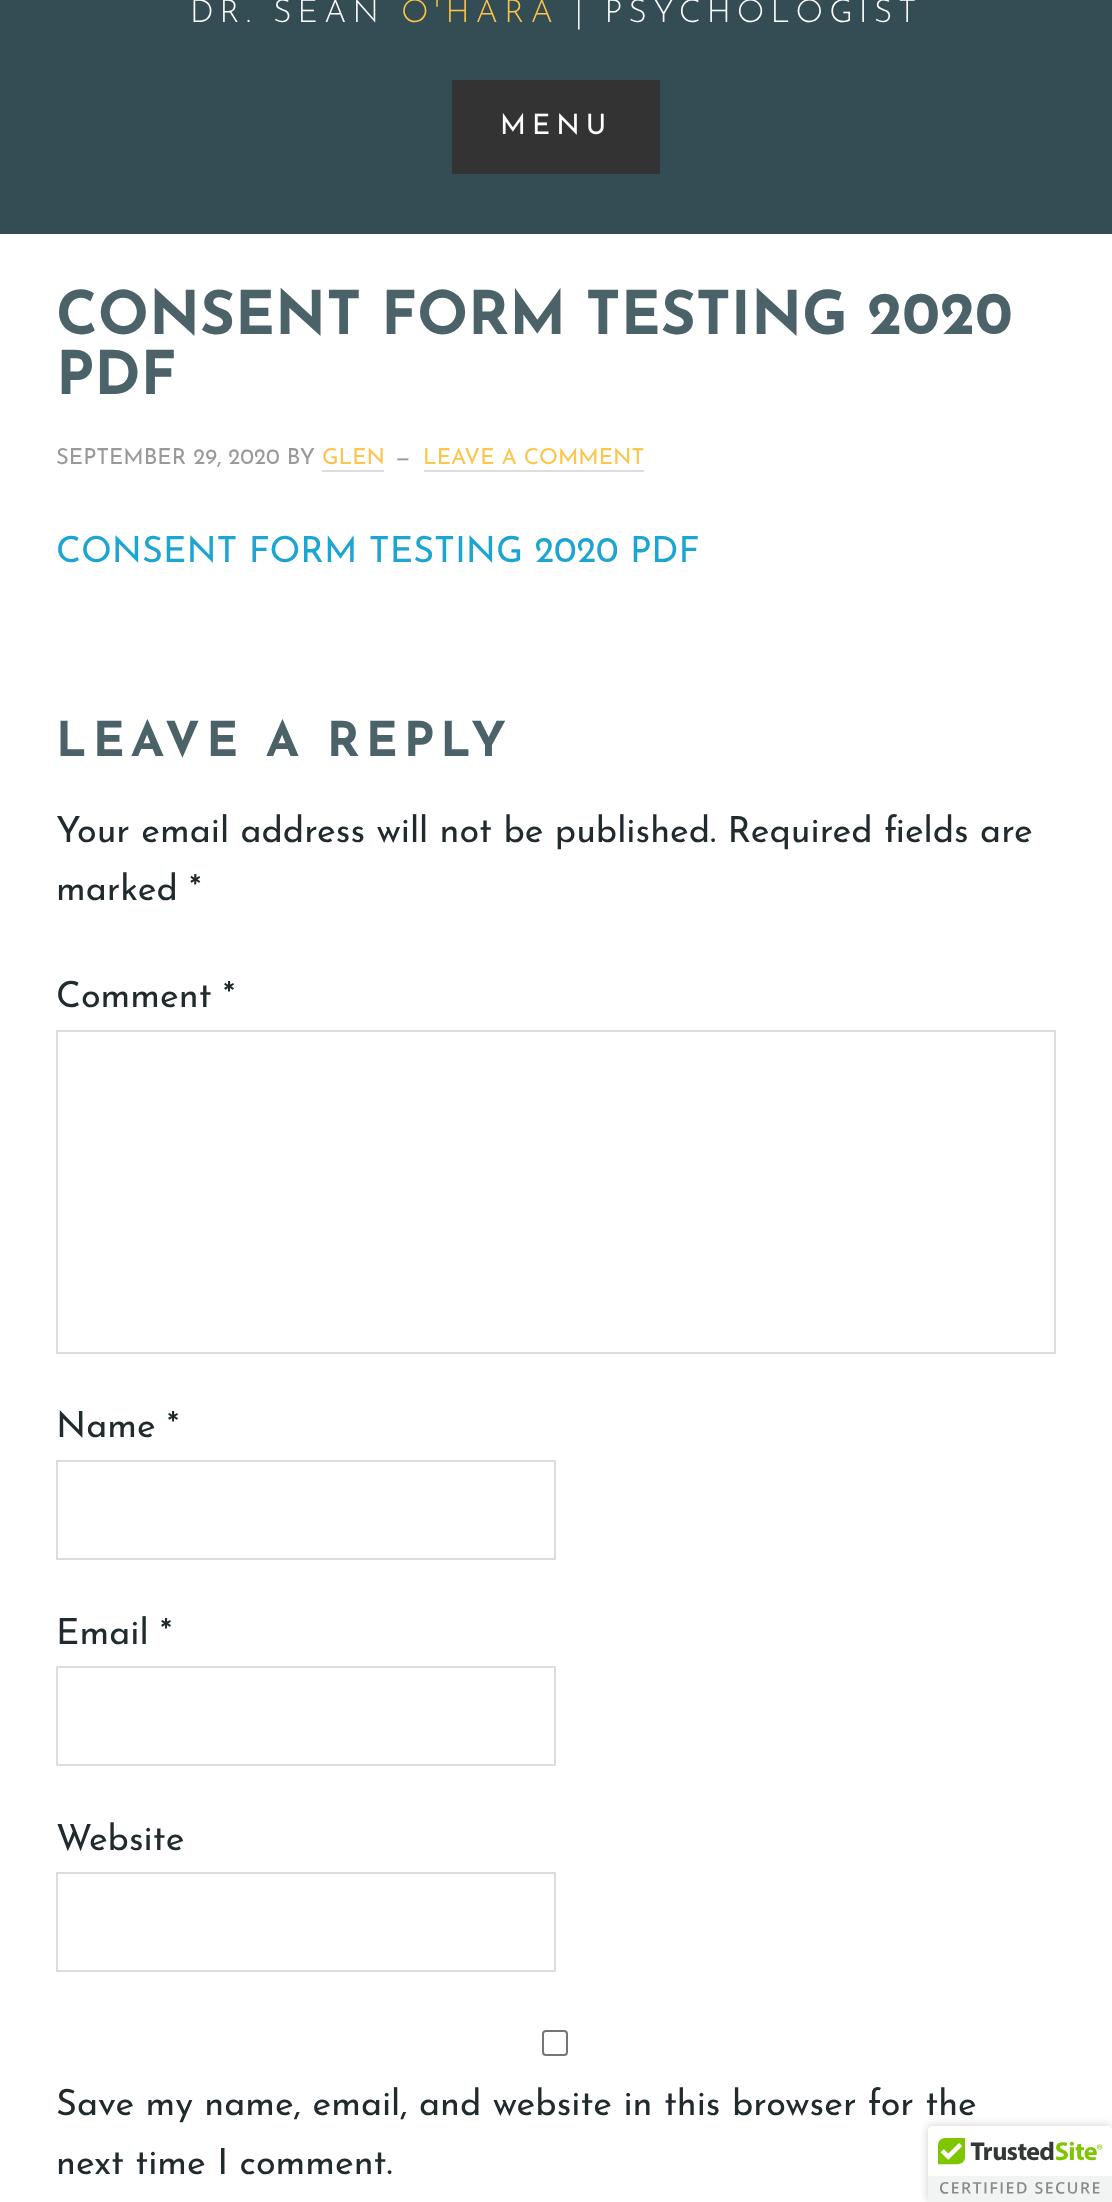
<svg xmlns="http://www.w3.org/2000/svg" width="1112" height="2202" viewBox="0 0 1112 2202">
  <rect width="100%" height="100%" fill="rgb(255,255,255)"/>
  <rect x="0" y="0" width="1112" height="234" fill="rgb(52,76,83)"/>
  <text x="190" y="22" font-family="Josefin Sans" font-size="32" font-weight="300" letter-spacing="6" fill="rgb(255,255,255)">DR. SEAN</text>
  <text x="401" y="22" font-family="Josefin Sans" font-size="32" font-weight="300" letter-spacing="6" fill="rgb(253,197,75)">O'HARA</text>
  <text x="575" y="22" font-family="Josefin Sans" font-size="32" font-weight="300" letter-spacing="6" fill="rgb(255,255,255)">| PSYCHOLOGIST</text>
  <rect x="452" y="80" width="208" height="94" fill="rgb(51,51,51)"/>
  <text x="500" y="134" font-family="Josefin Sans" font-size="28" letter-spacing="6" fill="rgb(255,255,255)">MENU</text>
  <g font-family="Josefin Sans" font-size="60" font-weight="bold" fill="rgb(75,98,105)">
    <text>
      <tspan x="56" y="334">CONSENT FORM TESTING 2020</tspan>
      <tspan x="56" y="394">PDF</tspan>
    </text>
  </g>
  <text x="56" y="464" font-family="Josefin Sans" font-size="22" fill="rgb(153,153,153)">SEPTEMBER 29, 2020 BY</text>
  <text x="322" y="464" font-family="Josefin Sans" font-size="22" fill="rgb(253,197,75)">GLEN</text>
  <rect x="322" y="470" width="62" height="2" fill="rgb(221,221,221)"/>
  <text x="395" y="464" font-family="Josefin Sans" font-size="22" fill="rgb(153,153,153)">—</text>
  <text x="423" y="464" font-family="Josefin Sans" font-size="22" fill="rgb(253,197,75)">LEAVE A COMMENT</text>
  <rect x="424" y="470" width="220" height="2" fill="rgb(221,221,221)"/>
  <text x="56" y="562" font-family="Josefin Sans" font-size="36" fill="rgb(28,165,210)">CONSENT FORM TESTING 2020 PDF</text>
  <text x="56" y="756" font-family="Josefin Sans" font-size="48" font-weight="bold" letter-spacing="6" fill="rgb(75,98,105)">LEAVE A REPLY</text>
  <g font-family="Josefin Sans" font-size="36" fill="rgb(33,42,45)">
    <text>
      <tspan x="56" y="842">Your email address will not be published. Required fields are</tspan>
      <tspan x="56" y="900">marked *</tspan>
    </text>
    <text x="56" y="1007">Comment *</text>
  </g>
  <rect x="57" y="1031" width="998" height="322" fill="none" stroke="rgb(221,221,221)" stroke-width="2"/>
  <text x="56" y="1437" font-family="Josefin Sans" font-size="36" fill="rgb(33,42,45)">Name *</text>
  <rect x="57" y="1461" width="498" height="98" fill="none" stroke="rgb(221,221,221)" stroke-width="2"/>
  <text x="56" y="1644" font-family="Josefin Sans" font-size="36" fill="rgb(33,42,45)">Email *</text>
  <rect x="57" y="1667" width="498" height="98" fill="none" stroke="rgb(221,221,221)" stroke-width="2"/>
  <text x="56" y="1850" font-family="Josefin Sans" font-size="36" fill="rgb(33,42,45)">Website</text>
  <rect x="57" y="1873" width="498" height="98" fill="none" stroke="rgb(221,221,221)" stroke-width="2"/>
  <rect x="543" y="2031" width="24" height="24" rx="3" fill="none" stroke="rgb(118,118,118)" stroke-width="2"/>
  <g font-family="Josefin Sans" font-size="36" fill="rgb(33,42,45)">
    <text>
      <tspan x="56" y="2115">Save my name, email, and website in this browser for the</tspan>
      <tspan x="56" y="2174">next time I comment.</tspan>
    </text>
  </g>
  <rect x="928" y="2126" width="184" height="76" rx="4" fill="rgba(0,0,0,0.2)" filter="blur(5px)"/>
  <path d="M932 2126H1112V2202H928V2130C928 2128 930 2126 932 2126Z" fill="rgb(255,255,255)"/>
  <image x="928" y="2126" width="184" height="76" href="pic1.png"/>
</svg>
